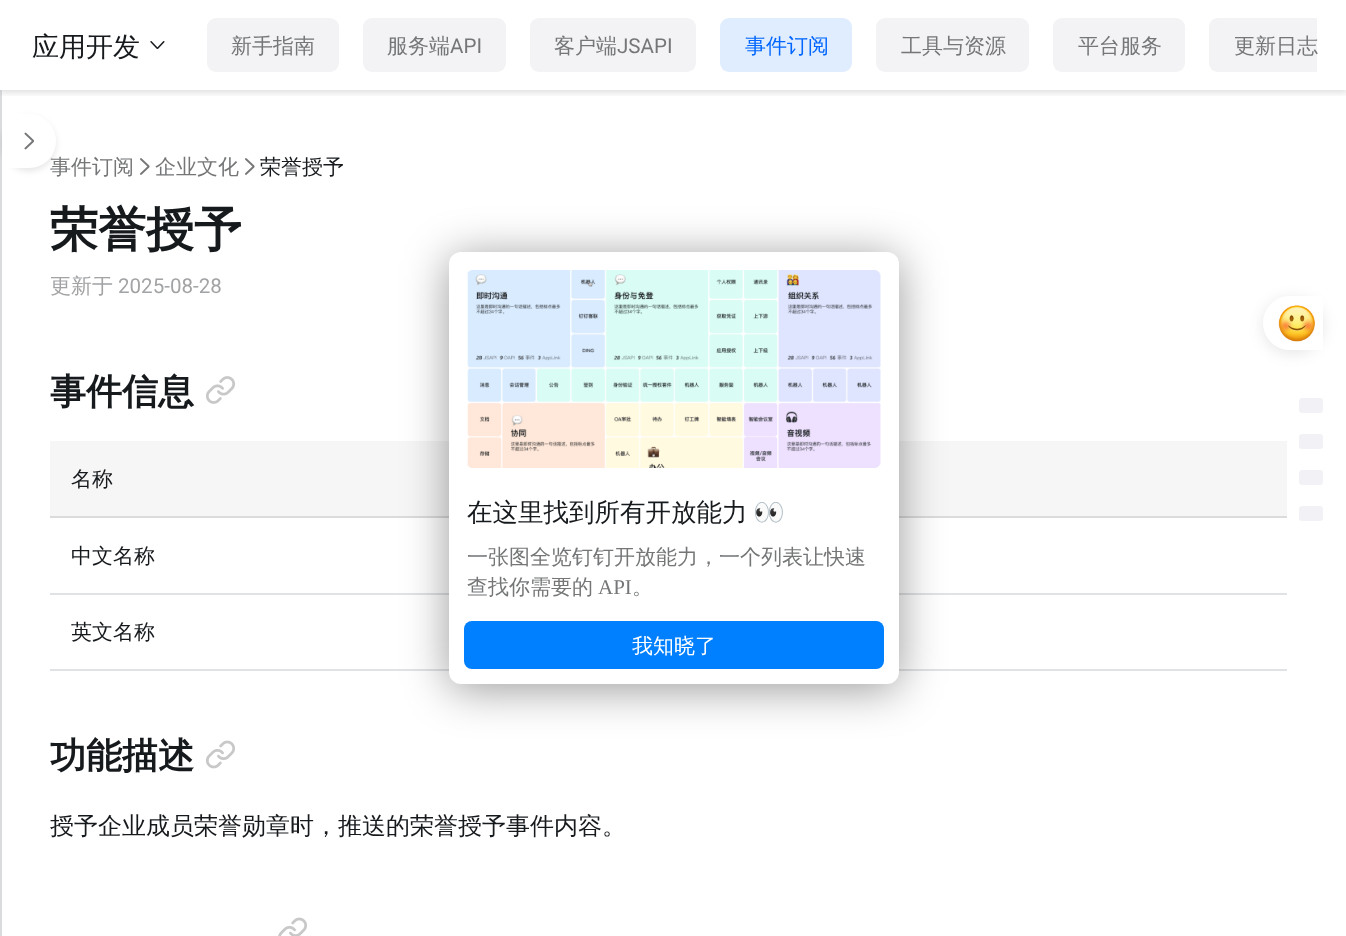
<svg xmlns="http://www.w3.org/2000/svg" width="1346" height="936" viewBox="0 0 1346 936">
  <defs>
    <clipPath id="clip1"><rect x="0" y="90" width="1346" height="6"/></clipPath>
  </defs>
  <rect width="100%" height="100%" fill="rgb(255,255,255)"/>
  <rect x="0" y="90" width="2" height="846" fill="rgb(246,246,246)"/>
  <g clip-path="url(#clip1)">
    <rect x="0" y="3" width="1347" height="90" fill="rgba(0,0,0,0.12)" filter="blur(3px)"/>
  </g>
  <text x="32" y="56" font-family="WenQuanYi Zen Hei" font-size="27" font-weight="500" fill="rgb(23,26,29)">应用开发</text>
  <image x="150" y="41" width="15" height="8" href="pic1.png"/>
  <rect x="207" y="18" width="132" height="54" rx="9" fill="rgb(243,243,245)"/>
  <text x="231" y="53" font-family="WenQuanYi Zen Hei" font-size="21" font-weight="500" fill="rgb(116,118,119)">新手指南</text>
  <rect x="363" y="18" width="143" height="54" rx="9" fill="rgb(243,243,245)"/>
  <text x="387" y="53" font-family="WenQuanYi Zen Hei" font-size="21" font-weight="500" fill="rgb(116,118,119)">服务端</text>
  <text x="450" y="53" font-family="Roboto" font-size="21" fill="rgb(116,118,119)">API</text>
  <rect x="530" y="18" width="166" height="54" rx="9" fill="rgb(243,243,245)"/>
  <text x="554" y="53" font-family="WenQuanYi Zen Hei" font-size="21" font-weight="500" fill="rgb(116,118,119)">客户端</text>
  <text x="617" y="53" font-family="Roboto" font-size="21" fill="rgb(116,118,119)">JSAPI</text>
  <rect x="720" y="18" width="132" height="54" rx="9" fill="rgb(224,237,255)"/>
  <text x="745" y="53" font-family="WenQuanYi Zen Hei" font-size="21" font-weight="500" fill="rgb(0,102,255)">事件订阅</text>
  <rect x="876" y="18" width="153" height="54" rx="9" fill="rgb(243,243,245)"/>
  <text x="901" y="53" font-family="WenQuanYi Zen Hei" font-size="21" font-weight="500" fill="rgb(116,118,119)">工具与资源</text>
  <rect x="1053" y="18" width="132" height="54" rx="9" fill="rgb(243,243,245)"/>
  <text x="1078" y="53" font-family="WenQuanYi Zen Hei" font-size="21" font-weight="500" fill="rgb(116,118,119)">平台服务</text>
  <path d="M1218 18H1317V72H1218C1213 72 1209 68 1209 63V27C1209 22 1213 18 1218 18Z" fill="rgb(243,243,245)"/>
  <text x="1234" y="53" font-family="WenQuanYi Zen Hei" font-size="21" font-weight="500" fill="rgb(116,118,119)">更新日志</text>
  <rect x="0" y="90" width="2" height="846" fill="rgba(126,134,142,0.24)"/>
  <rect x="2" y="117" width="54" height="54" rx="27" fill="rgba(0,0,0,0.1)" filter="blur(3px)"/>
  <text x="50" y="174" font-family="WenQuanYi Zen Hei" font-size="21" font-weight="500" fill="rgb(116,118,119)">事件订阅</text>
  <path d="M2 114H29C44 114 56 126 56 141C56 156 44 168 29 168H2Z" fill="rgb(255,255,255)"/>
  <image x="24" y="132" width="10" height="18" href="pic2.png"/>
  <image x="140" y="158" width="10" height="17" href="pic3.png"/>
  <text x="155" y="174" font-family="WenQuanYi Zen Hei" font-size="21" font-weight="500" fill="rgb(116,118,119)">企业文化</text>
  <image x="245" y="158" width="10" height="17" href="pic3.png"/>
  <text x="260" y="174" font-family="WenQuanYi Zen Hei" font-size="21" font-weight="500" fill="rgb(23,26,29)">荣誉授予</text>
  <text x="50" y="246" font-family="WenQuanYi Zen Hei" font-size="48" font-weight="bold" fill="rgb(23,26,29)">荣誉授予</text>
  <text x="50" y="293" font-family="WenQuanYi Zen Hei" font-size="21" font-weight="500" fill="rgb(162,163,165)">更新于</text>
  <text x="118" y="293" font-family="Roboto" font-size="21" fill="rgb(162,163,165)">2025-08-28</text>
  <text x="50" y="404" font-family="WenQuanYi Zen Hei" font-size="36" font-weight="bold" fill="rgb(23,26,29)">事件信息</text>
  <image x="206" y="376" width="29" height="28" href="pic4.png"/>
  <rect x="50" y="516" width="1237" height="2" fill="rgb(217,219,221)"/>
  <rect x="50" y="441" width="399" height="75" fill="rgb(246,246,246)"/>
  <text x="71" y="486" font-family="WenQuanYi Zen Hei" font-size="21" font-weight="500" fill="rgb(23,26,29)">名称</text>
  <rect x="899" y="441" width="388" height="75" fill="rgb(246,246,246)"/>
  <rect x="50" y="593" width="1237" height="2" fill="rgb(224,226,228)"/>
  <text x="71" y="563" font-family="WenQuanYi Zen Hei" font-size="21" font-weight="500" fill="rgb(23,26,29)">中文名称</text>
  <rect x="50" y="669" width="1237" height="2" fill="rgb(224,226,228)"/>
  <text x="71" y="639" font-family="WenQuanYi Zen Hei" font-size="21" font-weight="500" fill="rgb(23,26,29)">英文名称</text>
  <text x="50" y="768" font-family="WenQuanYi Zen Hei" font-size="36" font-weight="bold" fill="rgb(23,26,29)">功能描述</text>
  <image x="206" y="740" width="29" height="29" href="pic5.png"/>
  <text x="50" y="834" font-family="WenQuanYi Zen Hei" font-size="24" font-weight="500" fill="rgb(23,26,29)">授予企业成员荣誉勋章时，推送的荣誉授予事件内容。</text>
  <image x="278" y="917" width="29" height="19" href="pic6.png"/>
  <rect x="1263" y="299" width="60" height="54" rx="27" fill="rgba(0,0,0,0.1)" filter="blur(7.5px)"/>
  <path d="M1290 296H1323V350H1290C1275 350 1263 338 1263 323C1263 308 1275 296 1290 296Z" fill="rgb(255,255,255)"/>
  <image x="1278" y="305" width="37" height="37" href="pic7.png"/>
  <rect x="1299" y="398" width="24" height="15" rx="3" fill="rgb(242,242,246)"/>
  <rect x="1299" y="434" width="24" height="15" rx="3" fill="rgb(242,242,246)"/>
  <rect x="1299" y="470" width="24" height="15" rx="3" fill="rgb(242,242,246)"/>
  <rect x="1299" y="506" width="24" height="15" rx="3" fill="rgb(242,242,246)"/>
  <rect x="449" y="257" width="450" height="432" rx="12" fill="rgba(0,0,0,0.4)" filter="blur(22.5px)"/>
  <rect x="449" y="252" width="450" height="432" rx="12" fill="rgb(255,255,255)"/>
  <image x="466" y="270" width="415" height="198" href="pic8.png"/>
  <text x="467" y="521" font-family="WenQuanYi Zen Hei" font-size="25.5" font-weight="500" fill="rgb(23,26,29)">在这里找到所有开放能力</text>
  <text x="753" y="521" font-family="Noto Color Emoji" font-size="25.5" fill="rgb(23,26,29)">👀</text>
  <g font-family="WenQuanYi Zen Hei" font-size="21" font-weight="500" fill="rgb(116,118,119)">
    <text>
      <tspan x="467" y="564">一张图全览钉钉开放能力，一个列表让快速</tspan>
      <tspan x="467" y="594">查找你需要的</tspan>
    </text>
  </g>
  <text x="598" y="594" font-family="Liberation Serif" font-size="21" fill="rgb(116,118,119)">API</text>
  <text x="632" y="594" font-family="WenQuanYi Zen Hei" font-size="21" font-weight="500" fill="rgb(116,118,119)">。</text>
  <rect x="464" y="621" width="420" height="48" rx="8" fill="rgb(0,127,255)"/>
  <text x="632" y="653" font-family="WenQuanYi Zen Hei" font-size="21" font-weight="500" fill="rgb(255,255,255)">我知晓了</text>
</svg>
